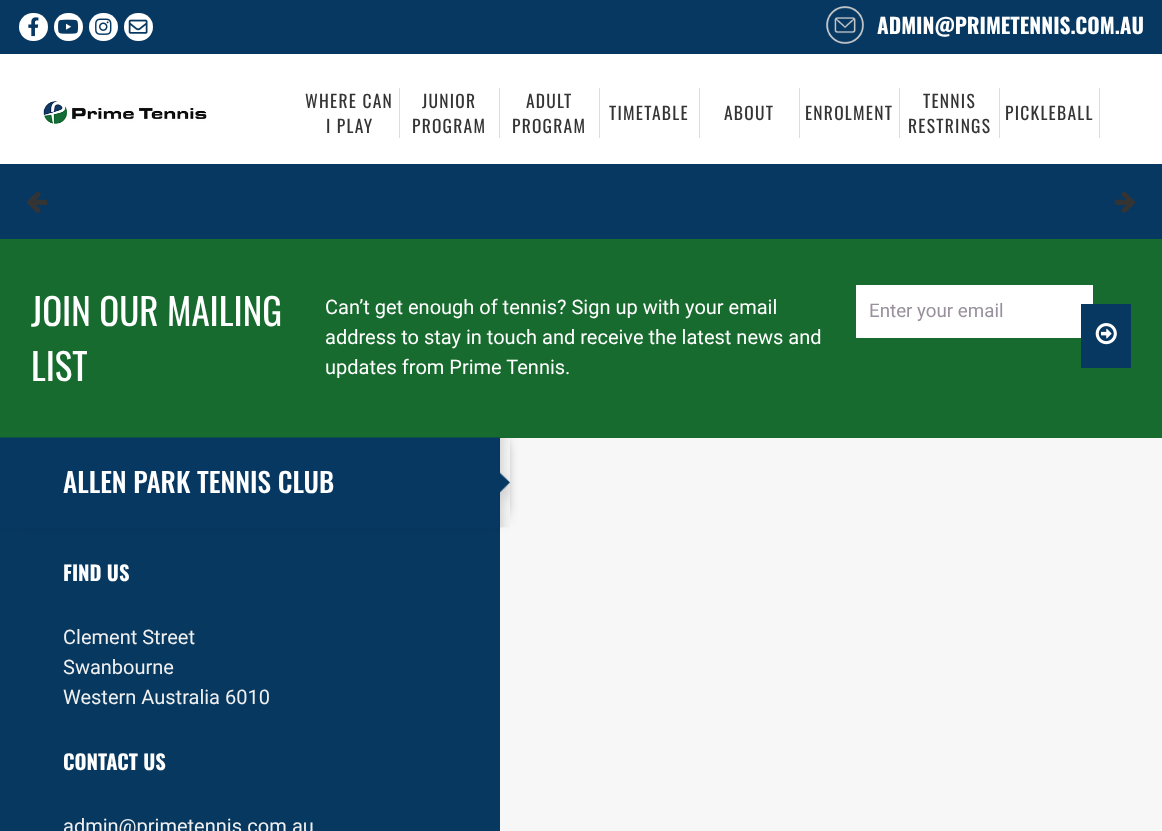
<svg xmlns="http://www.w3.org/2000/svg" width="1162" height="831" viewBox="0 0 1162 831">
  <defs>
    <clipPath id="clip1"><rect x="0" y="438" width="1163" height="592"/></clipPath>
    <clipPath id="clip2"><path d="M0 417H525V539H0ZM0 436H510V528H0Z" clip-rule="evenodd"/></clipPath>
  </defs>
  <rect width="100%" height="100%" fill="rgb(255,255,255)"/>
  <rect x="0" y="0" width="1162" height="54" fill="rgb(7,56,97)"/>
  <rect x="19" y="13" width="29" height="28" rx="14" fill="rgb(255,255,255)"/>
  <image x="28" y="17" width="11" height="20" href="pic1.png"/>
  <rect x="54" y="13" width="29" height="28" rx="14" fill="rgb(255,255,255)"/>
  <image x="58" y="19" width="21" height="15" href="pic2.png"/>
  <rect x="89" y="13" width="29" height="28" rx="14" fill="rgb(255,255,255)"/>
  <image x="95" y="18" width="17" height="17" href="pic3.png"/>
  <rect x="124" y="13" width="29" height="28" rx="14" fill="rgb(255,255,255)"/>
  <image x="128" y="19" width="20" height="15" href="pic4.png"/>
  <image x="826" y="6" width="38" height="38" href="pic5.png"/>
  <text x="877" y="34" font-family="Oswald" font-size="21.25" font-weight="bold" fill="rgb(255,255,255)">ADMIN@PRIMETENNIS.COM.AU</text>
  <image x="43" y="101" width="164" height="23" href="pic6.png"/>
  <rect x="399" y="88" width="1" height="50" fill="rgb(221,221,221)"/>
  <g font-family="Oswald" font-size="17.5" letter-spacing="1.25" fill="rgb(52,52,52)">
    <text x="305" y="108">WHERE CAN</text>
    <text x="326" y="133">I PLAY</text>
  </g>
  <rect x="499" y="88" width="1" height="50" fill="rgb(221,221,221)"/>
  <g font-family="Oswald" font-size="17.5" letter-spacing="1.25" fill="rgb(52,52,52)">
    <text x="422" y="108">JUNIOR</text>
    <text x="412" y="133">PROGRAM</text>
  </g>
  <rect x="599" y="88" width="1" height="50" fill="rgb(221,221,221)"/>
  <g font-family="Oswald" font-size="17.5" letter-spacing="1.25" fill="rgb(52,52,52)">
    <text x="526" y="108">ADULT</text>
    <text x="512" y="133">PROGRAM</text>
  </g>
  <rect x="699" y="88" width="1" height="50" fill="rgb(221,221,221)"/>
  <text x="609" y="120" font-family="Oswald" font-size="17.5" letter-spacing="1.25" fill="rgb(52,52,52)">TIMETABLE</text>
  <rect x="799" y="88" width="1" height="50" fill="rgb(221,221,221)"/>
  <text x="724" y="120" font-family="Oswald" font-size="17.5" letter-spacing="1.25" fill="rgb(52,52,52)">ABOUT</text>
  <rect x="899" y="88" width="1" height="50" fill="rgb(221,221,221)"/>
  <text x="805" y="120" font-family="Oswald" font-size="17.5" letter-spacing="1.25" fill="rgb(52,52,52)">ENROLMENT</text>
  <rect x="999" y="88" width="1" height="50" fill="rgb(221,221,221)"/>
  <g font-family="Oswald" font-size="17.5" letter-spacing="1.25" fill="rgb(52,52,52)">
    <text x="923" y="108">TENNIS</text>
    <text x="908" y="133">RESTRINGS</text>
  </g>
  <rect x="1099" y="88" width="1" height="50" fill="rgb(221,221,221)"/>
  <text x="1005" y="120" font-family="Oswald" font-size="17.5" letter-spacing="1.25" fill="rgb(52,52,52)">PICKLEBALL</text>
  <rect x="0" y="164" width="1162" height="75" fill="rgb(7,56,97)"/>
  <image x="27" y="191" width="21" height="22" href="pic7.png"/>
  <image x="1114" y="191" width="21" height="22" href="pic8.png"/>
  <rect x="0" y="239" width="1162" height="199" fill="rgb(24,107,46)"/>
  <g font-family="Oswald" font-size="37" fill="rgb(255,255,255)">
    <text>
      <tspan x="31" y="326">JOIN OUR MAILING</tspan>
      <tspan x="31" y="381">LIST</tspan>
    </text>
  </g>
  <g font-family="Roboto" font-size="20" fill="rgb(255,255,255)">
    <text>
      <tspan x="325" y="314">Can’t get enough of tennis? Sign up with your email</tspan>
      <tspan x="325" y="344">address to stay in touch and receive the latest news and</tspan>
      <tspan x="325" y="374">updates from Prime Tennis.</tspan>
    </text>
  </g>
  <rect x="856" y="285" width="237" height="53" fill="rgb(255,255,255)"/>
  <text x="869" y="317" font-family="Roboto" font-size="18.75" fill="rgb(152,144,156)">Enter your email</text>
  <rect x="1081" y="304" width="50" height="64" fill="rgb(7,56,97)"/>
  <image x="1095" y="323" width="22" height="22" href="pic9.png"/>
  <rect x="0" y="438" width="500" height="393" fill="rgb(7,56,96)"/>
  <rect x="500" y="438" width="662" height="393" fill="rgb(247,247,247)"/>
  <g clip-path="url(#clip1)">
    <g clip-path="url(#clip2)">
      <rect x="9" y="441" width="492" height="74" fill="rgb(0,0,0)" filter="blur(7.5px)"/>
    </g>
  </g>
  <image x="0" y="437" width="510" height="91" href="pic10.png"/>
  <text x="63" y="493" font-family="Oswald" font-size="27.25" font-weight="500" fill="rgb(255,255,255)">ALLEN PARK TENNIS CLUB</text>
  <text x="63" y="581" font-family="Oswald" font-size="20.5" font-weight="bold" fill="rgb(255,255,255)">FIND US</text>
  <g font-family="Roboto" font-size="20" fill="rgb(240,240,240)">
    <text>
      <tspan x="63" y="644">Clement Street</tspan>
      <tspan x="63" y="674">Swanbourne</tspan>
      <tspan x="63" y="704">Western Australia 6010</tspan>
    </text>
  </g>
  <text x="63" y="770" font-family="Oswald" font-size="20.5" font-weight="bold" fill="rgb(255,255,255)">CONTACT US</text>
  <text x="63" y="833" font-family="Roboto" font-size="20" fill="rgb(240,240,240)">admin@primetennis.com.au</text>
</svg>
